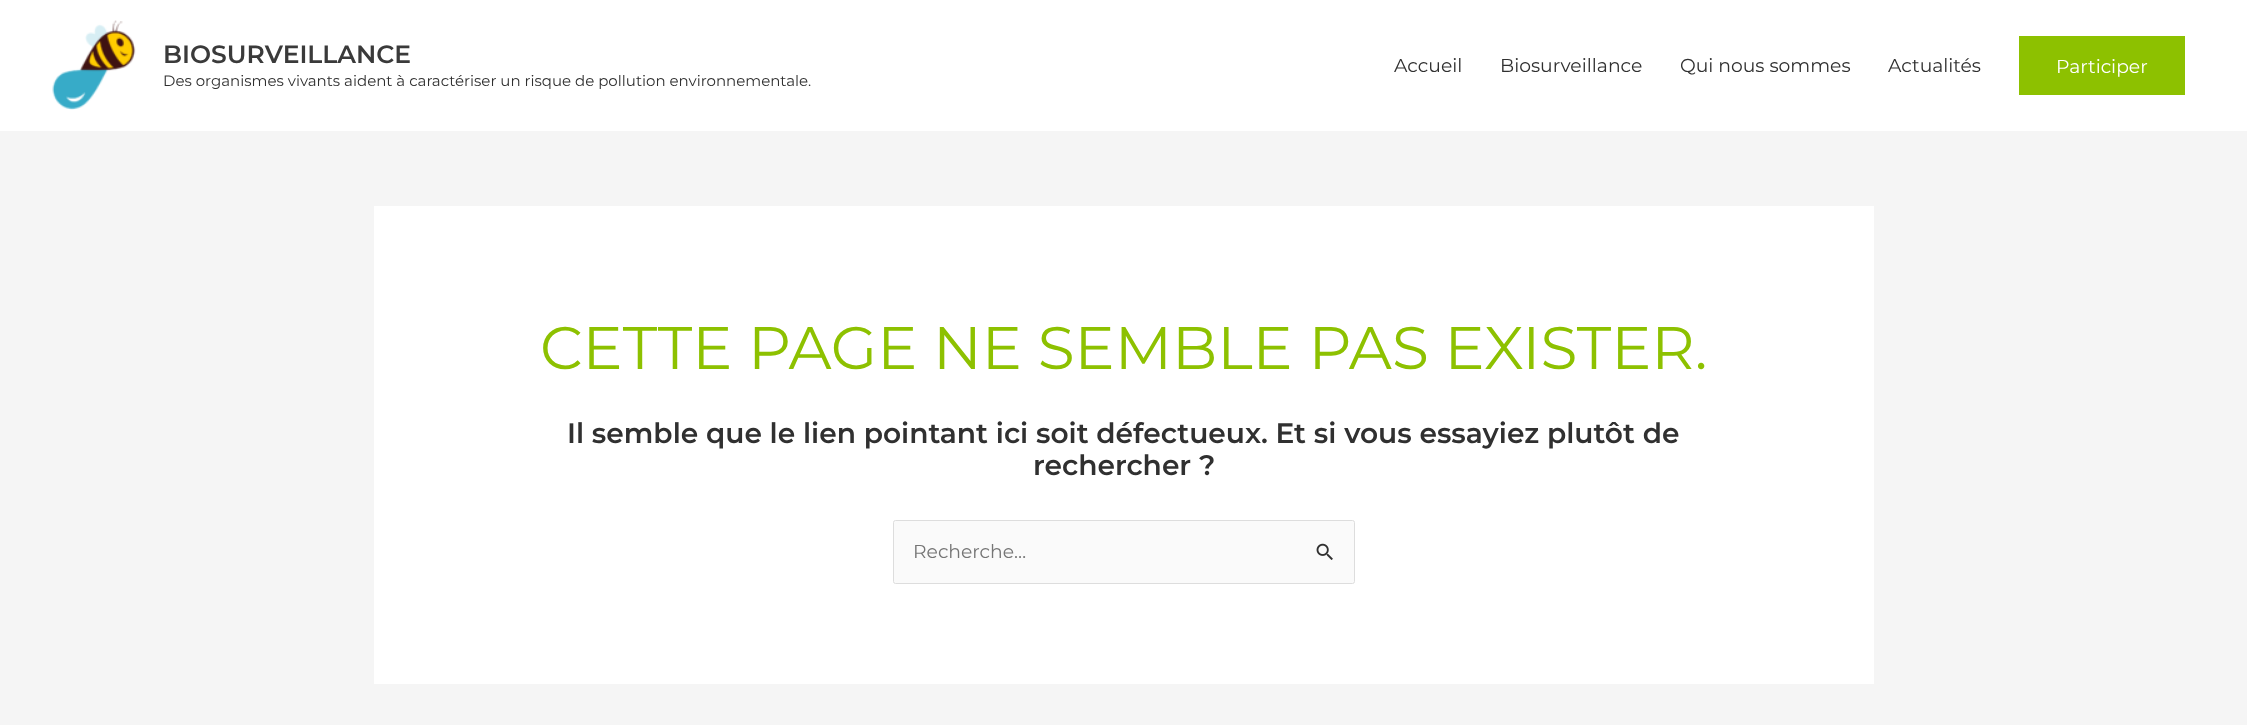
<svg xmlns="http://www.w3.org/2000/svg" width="2247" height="725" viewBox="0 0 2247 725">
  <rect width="100%" height="100%" fill="rgb(245,245,245)"/>
  <rect x="0" y="0" width="2247" height="131" fill="rgb(255,255,255)"/>
  <image x="52" y="20" width="84" height="90" href="pic1.png"/>
  <text x="163" y="63" font-family="Montserrat" font-size="25" font-weight="600" fill="rgb(58,58,58)">BIOSURVEILLANCE</text>
  <text x="163" y="86" font-family="Montserrat" font-size="15" fill="rgb(48,48,48)">Des organismes vivants aident à caractériser un risque de pollution environnementale.</text>
  <g font-family="Montserrat" font-size="18.75" fill="rgb(48,48,48)">
    <text x="1394" y="72">Accueil</text>
    <text x="1500" y="72">Biosurveillance</text>
    <text x="1680" y="72">Qui nous sommes</text>
    <text x="1888" y="72">Actualités</text>
  </g>
  <rect x="2019" y="36" width="166" height="59" fill="rgb(141,193,0)"/>
  <text x="2056" y="73" font-family="Montserrat" font-size="18.75" fill="rgb(255,255,255)">Participer</text>
  <rect x="374" y="206" width="1500" height="478" fill="rgb(255,255,255)"/>
  <text x="540" y="369" font-family="Montserrat" font-size="60" fill="rgb(141,193,0)">CETTE PAGE NE SEMBLE PAS EXISTER.</text>
  <g font-family="Montserrat" font-size="28.1" font-weight="600" fill="rgb(48,48,48)">
    <text x="567" y="443">Il semble que le lien pointant ici soit défectueux. Et si vous essayiez plutôt de</text>
    <text x="1033" y="475">rechercher ?</text>
  </g>
  <rect x="893.5" y="520.5" width="461" height="63" rx="2" fill="rgb(250,250,250)" stroke="rgb(221,221,221)"/>
  <text x="913" y="558" font-family="Montserrat" font-size="18.75" fill="rgb(117,117,117)">Recherche…</text>
  <image x="1316" y="543" width="17" height="17" href="pic2.png"/>
</svg>
